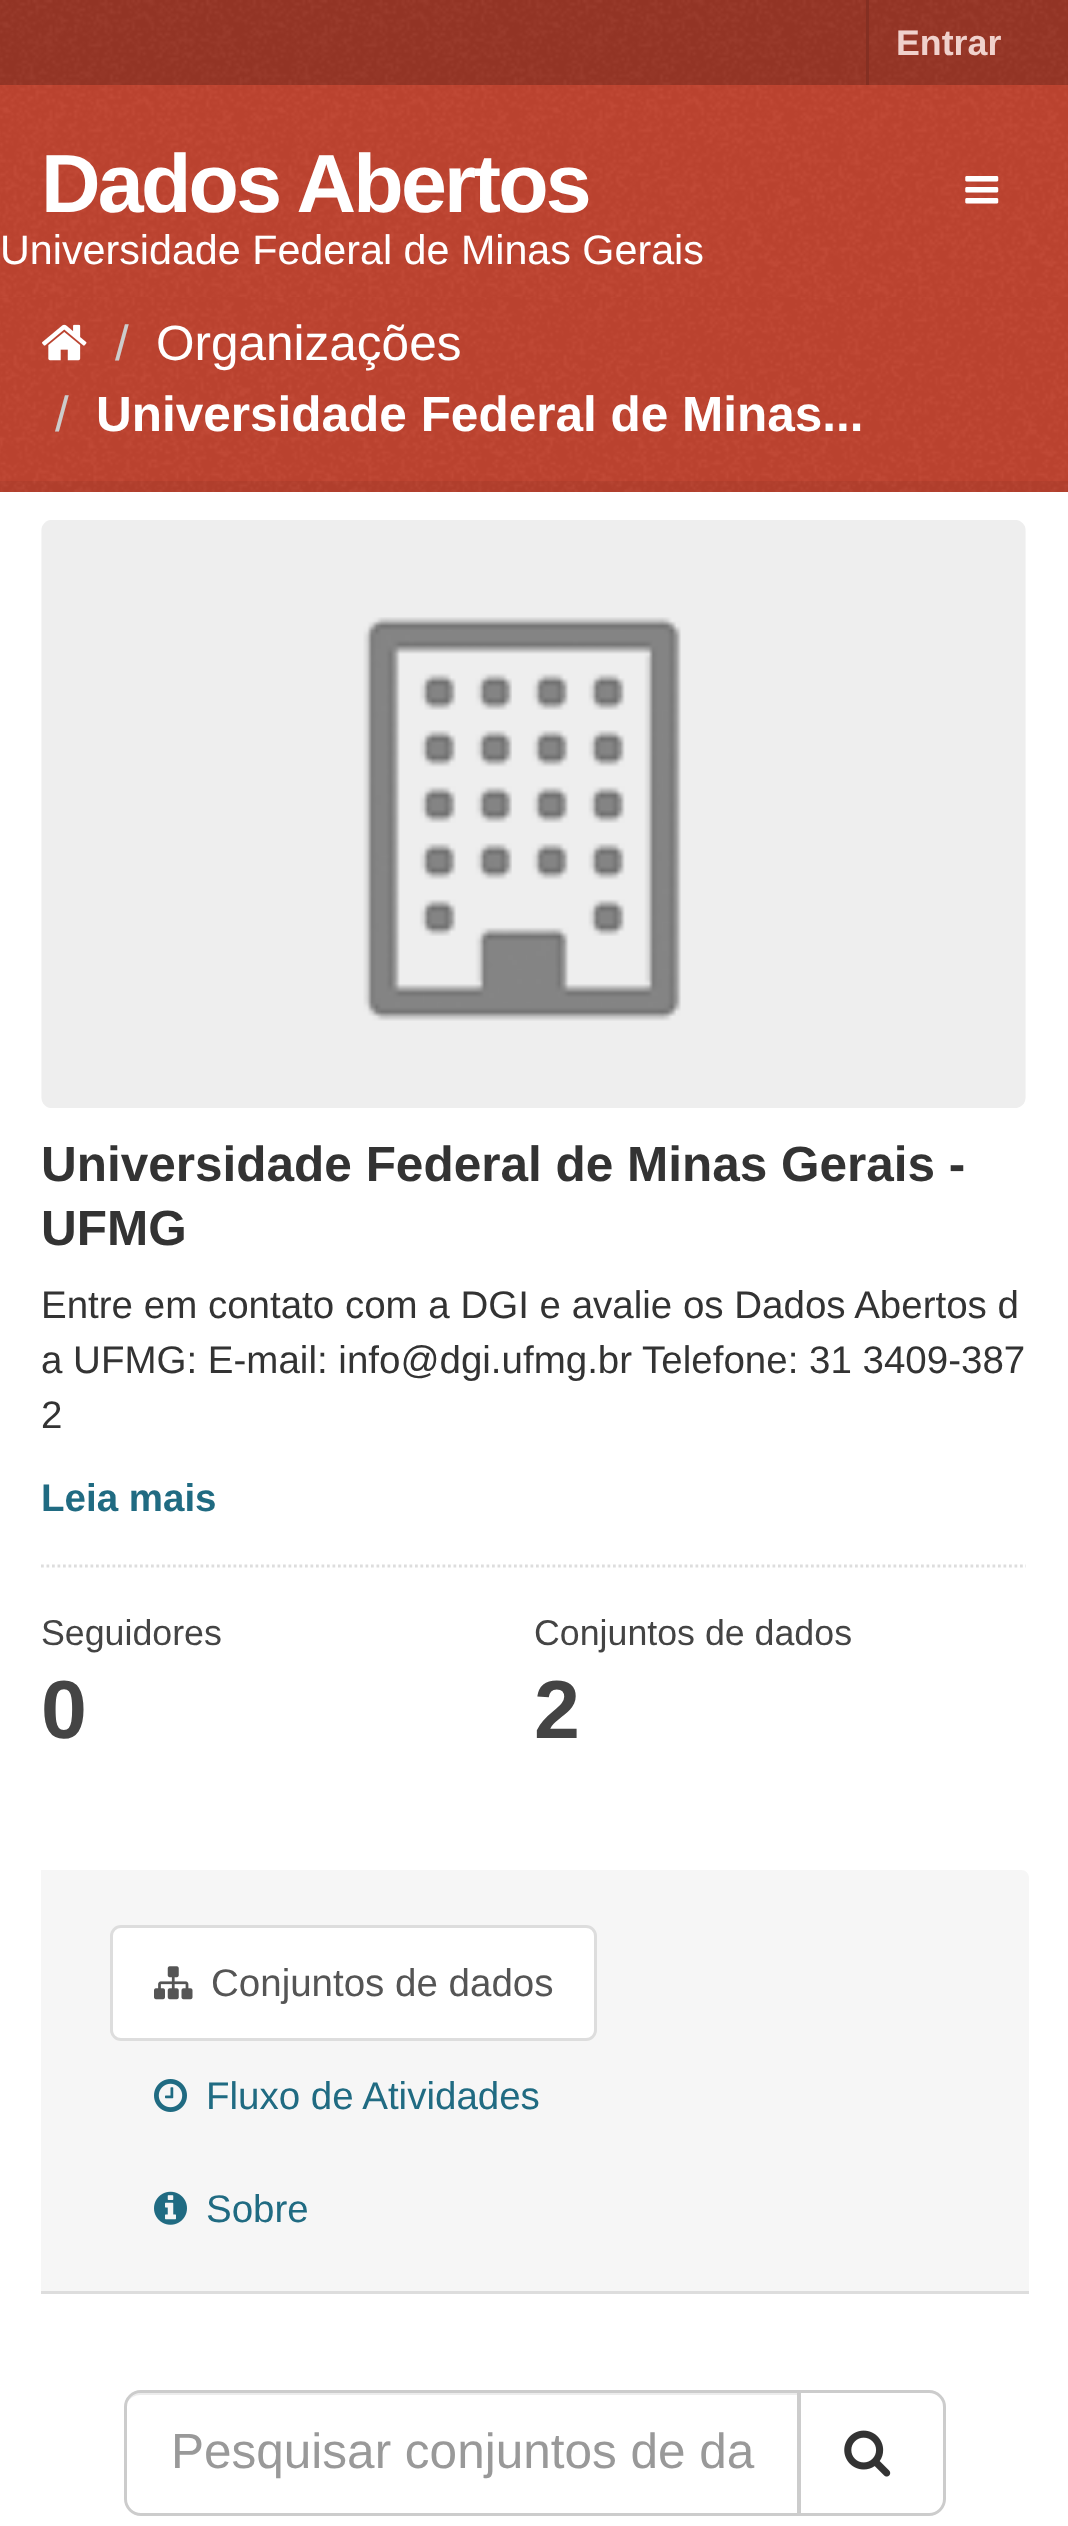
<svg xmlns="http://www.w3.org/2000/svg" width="1068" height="2526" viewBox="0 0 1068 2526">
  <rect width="100%" height="100%" fill="rgb(193,69,49)"/>
  <image x="0" y="297" width="1068" height="195" href="pic1.png"/>
  <rect x="0" y="0" width="1068" height="85" fill="rgb(152,54,39)"/>
  <image x="0" y="0" width="1068" height="85" href="pic2.png"/>
  <rect x="866" y="0" width="3" height="85" fill="rgb(132,47,34)"/>
  <text x="896" y="55" font-family="Liberation Sans" font-size="35.75" font-weight="bold" fill="rgb(240,209,204)">Entrar</text>
  <image x="0" y="85" width="1068" height="212" href="pic3.png"/>
  <text x="41" y="212" font-family="Liberation Sans" font-size="82.5" font-weight="bold" letter-spacing="-2.75" fill="rgb(255,255,255)">Dados Abertos</text>
  <text x="0" y="264" font-family="Liberation Sans" font-size="41.25" fill="rgb(255,255,255)">Universidade Federal de Minas Gerais</text>
  <image x="965" y="176" width="34" height="28" href="pic4.png"/>
  <image x="42" y="324" width="45" height="37" href="pic5.png"/>
  <text x="115" y="360" font-family="Liberation Sans" font-size="49.5" fill="rgb(204,204,204)">/</text>
  <text x="156" y="360" font-family="Liberation Sans" font-size="49.5" fill="rgb(255,255,255)">Organizações</text>
  <text x="55" y="431" font-family="Liberation Sans" font-size="49.5" fill="rgb(204,204,204)">/</text>
  <text x="96" y="431" font-family="Liberation Sans" font-size="49.5" font-weight="bold" fill="rgb(255,255,255)">Universidade Federal de Minas...</text>
  <rect x="-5.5" y="486.5" width="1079" height="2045" fill="none" stroke="rgba(0,0,0,0.05)" stroke-width="11"/>
  <rect x="0" y="492" width="1068" height="2034" fill="rgb(255,255,255)"/>
  <image x="41" y="520" width="985" height="588" href="pic6.png"/>
  <g font-family="Liberation Sans" font-size="49.5" font-weight="bold" fill="rgb(51,51,51)">
    <text>
      <tspan x="41" y="1181">Universidade Federal de Minas Gerais -</tspan>
      <tspan x="41" y="1245">UFMG</tspan>
    </text>
  </g>
  <g font-family="Liberation Sans" font-size="38.5" fill="rgb(51,51,51)">
    <text>
      <tspan x="41" y="1318">Entre em contato com a DGI e avalie os Dados Abertos d</tspan>
      <tspan x="41" y="1373">a UFMG: E-mail: info@dgi.ufmg.br Telefone: 31 3409-387</tspan>
      <tspan x="41" y="1428">2</tspan>
    </text>
  </g>
  <text x="41" y="1511" font-family="Liberation Sans" font-size="38.5" font-weight="bold" fill="rgb(32,107,130)">Leia mais</text>
  <path d="M41 1566H1026" fill="none" stroke="rgb(221,221,221)" stroke-width="2.8" stroke-dasharray="2.75 2.75"/>
  <text x="41" y="1645" font-family="Liberation Sans" font-size="35.75" fill="rgb(68,68,68)">Seguidores</text>
  <text x="41" y="1738" font-family="Liberation Sans" font-size="82.5" font-weight="bold" fill="rgb(68,68,68)">0</text>
  <text x="534" y="1645" font-family="Liberation Sans" font-size="35.75" fill="rgb(68,68,68)">Conjuntos de dados</text>
  <text x="534" y="1738" font-family="Liberation Sans" font-size="82.5" font-weight="bold" fill="rgb(68,68,68)">2</text>
  <path d="M41 1870H1021C1025.5 1870 1029 1873.5 1029 1878V2294H41Z" fill="rgb(246,246,246)"/>
  <rect x="41" y="2291" width="988" height="3" fill="rgb(221,221,221)"/>
  <rect x="111.5" y="1926.5" width="484" height="113" rx="9.5" fill="rgb(255,255,255)" stroke="rgb(221,221,221)" stroke-width="3"/>
  <image x="154" y="1966" width="39" height="34" href="pic7.png"/>
  <text x="211" y="1996" font-family="Liberation Sans" font-size="38.5" fill="rgb(85,85,85)">Conjuntos de dados</text>
  <image x="154" y="2079" width="33" height="33" href="pic8.png"/>
  <text x="206" y="2109" font-family="Liberation Sans" font-size="38.5" fill="rgb(32,107,130)">Fluxo de Atividades</text>
  <image x="154" y="2191" width="33" height="34" href="pic9.png"/>
  <text x="206" y="2222" font-family="Liberation Sans" font-size="38.5" fill="rgb(32,107,130)">Sobre</text>
  <path d="M140 2395H798V2393H141C135 2393 130 2397 128 2402C130 2398 135 2395 140 2395Z" fill="rgb(236,236,236)"/>
  <path d="M141 2391.5H798.5V2514.5H141C132.5 2514.5 125.5 2507.5 125.5 2499V2407C125.5 2398.5 132.5 2391.5 141 2391.5Z" fill="none" stroke="rgb(204,204,204)" stroke-width="3"/>
  <text x="171" y="2468" font-family="Liberation Sans" font-size="49.5" fill="rgb(153,153,153)">Pesquisar conjuntos de da</text>
  <path d="M799.5 2391.5H929C937.5 2391.5 944.5 2398.5 944.5 2407V2499C944.5 2507.5 937.5 2514.5 929 2514.5H799.5Z" fill="rgb(255,255,255)" stroke="rgb(204,204,204)" stroke-width="3"/>
  <image x="844" y="2430" width="47" height="47" href="pic10.png"/>
</svg>
